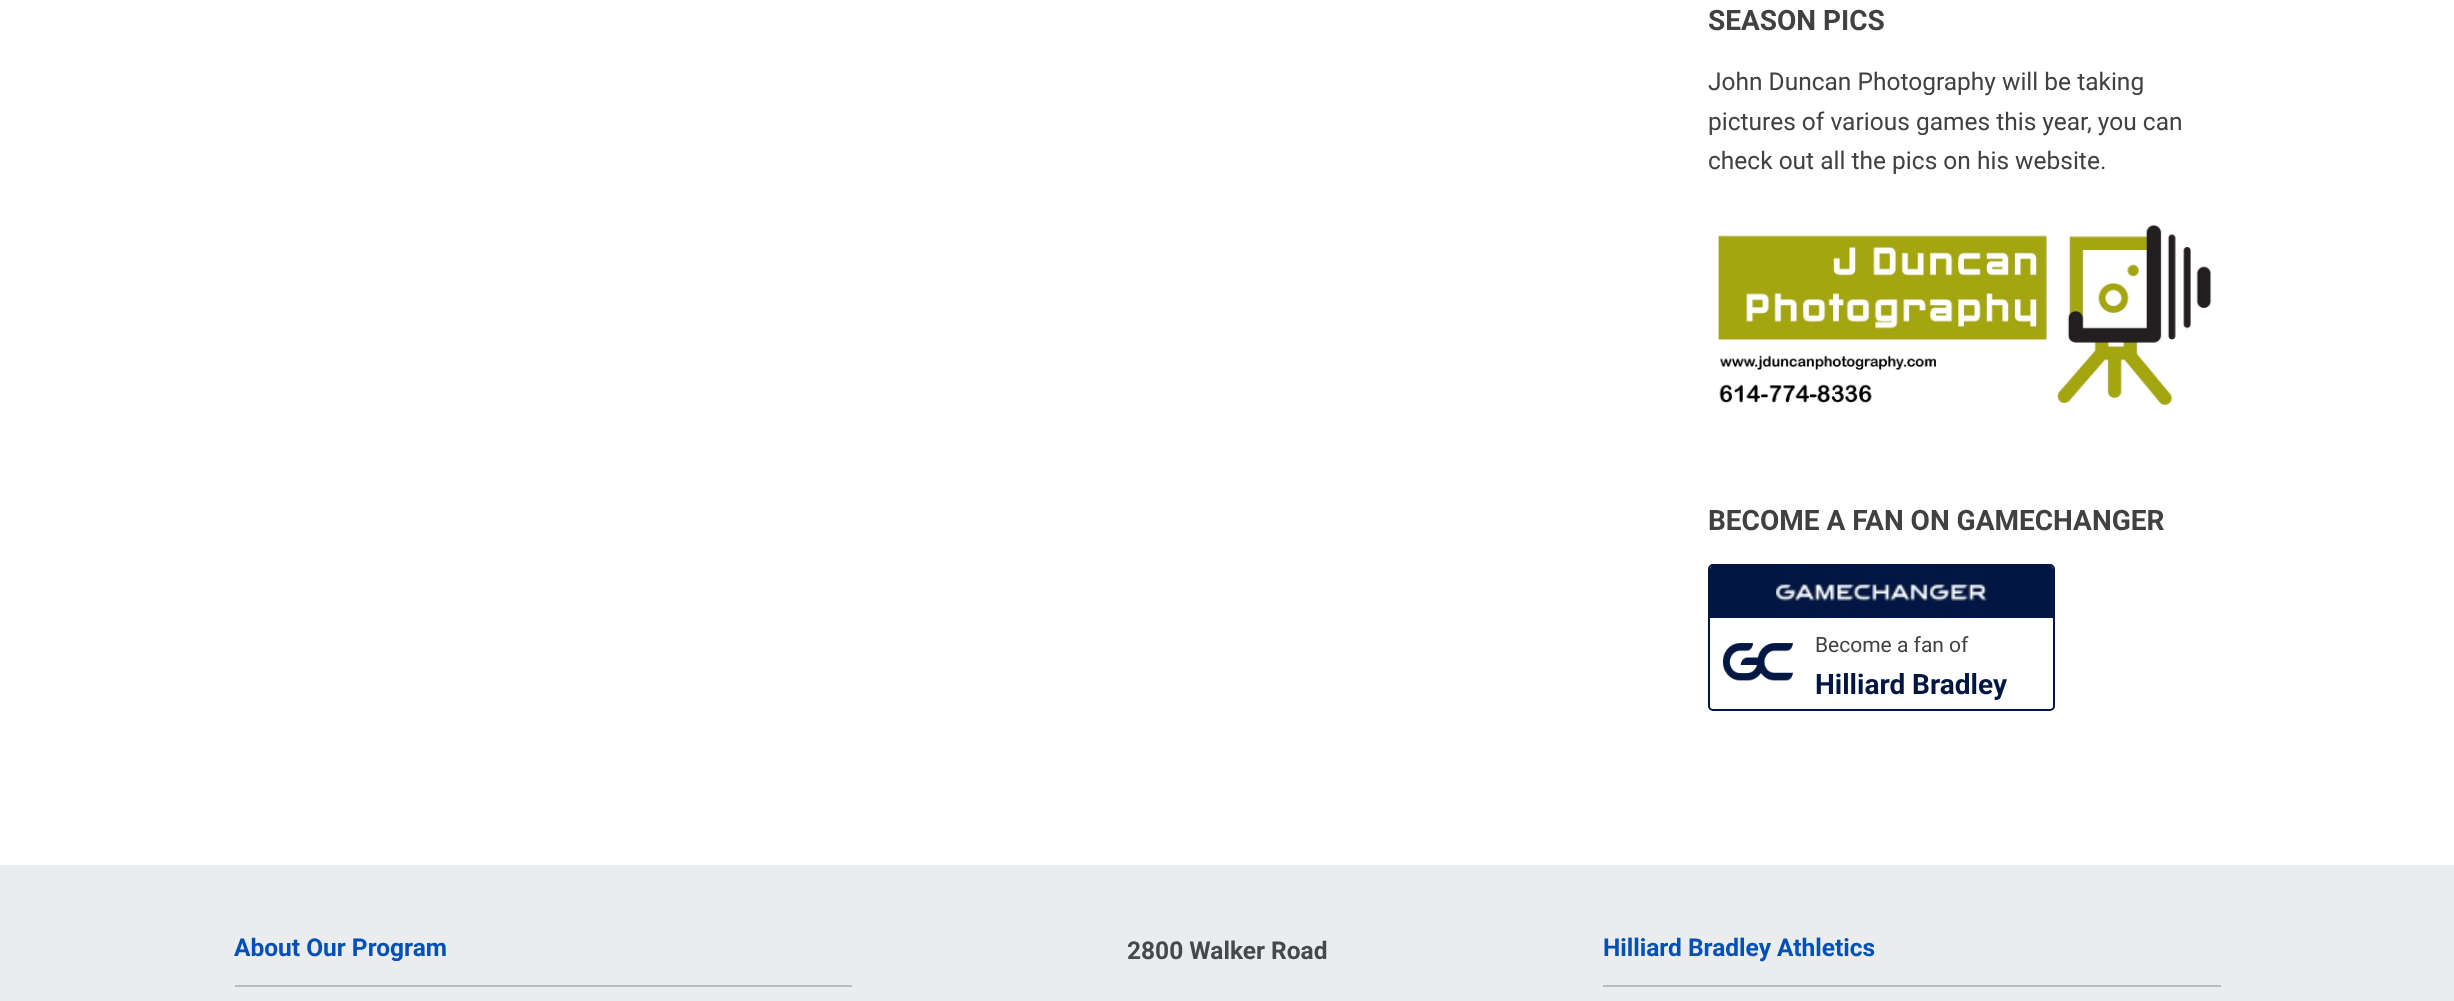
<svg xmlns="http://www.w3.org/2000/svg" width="2454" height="1001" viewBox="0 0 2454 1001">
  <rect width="100%" height="100%" fill="rgb(255,255,255)"/>
  <text x="1708" y="30" font-family="Roboto" font-size="28" font-weight="bold" fill="rgb(65,65,65)">SEASON PICS</text>
  <g font-family="Roboto" font-size="24.5" fill="rgb(65,65,65)">
    <text>
      <tspan x="1708" y="90">John Duncan Photography will be taking</tspan>
      <tspan x="1708" y="130">pictures of various games this year, you can</tspan>
      <tspan x="1708" y="169">check out all the pics on his website.</tspan>
    </text>
  </g>
  <image x="1717" y="224" width="495" height="182" href="pic1.png"/>
  <text x="1708" y="530" font-family="Roboto" font-size="28" font-weight="bold" fill="rgb(65,65,65)">BECOME A FAN ON GAMECHANGER</text>
  <rect x="1709" y="565" width="345" height="145" rx="4" fill="none" stroke="rgb(2,22,68)" stroke-width="2"/>
  <path d="M1714 565H2049C2051 565 2053 567 2053 569V618H1710V569C1710 567 1712 565 1714 565Z" fill="rgb(2,22,68)"/>
  <image x="1776" y="566" width="211" height="52" href="pic2.png"/>
  <image x="1722" y="643" width="71" height="38" href="pic3.png"/>
  <text x="1815" y="652" font-family="Roboto" font-size="21" fill="rgb(65,65,65)">Become a fan of</text>
  <text x="1815" y="694" font-family="Roboto" font-size="28" font-weight="bold" fill="rgb(2,22,68)">Hilliard Bradley</text>
  <rect x="0" y="865" width="2454" height="136" fill="rgb(234,236,238)"/>
  <rect x="235" y="985" width="617" height="2" fill="rgb(185,188,191)"/>
  <text x="234" y="956" font-family="Roboto" font-size="24.5" font-weight="bold" fill="rgb(0,80,186)">About Our Program</text>
  <text x="1127" y="959" font-family="Roboto" font-size="24.5" font-weight="bold" fill="rgb(70,72,73)">2800 Walker Road</text>
  <rect x="1603" y="985" width="618" height="2" fill="rgb(185,188,191)"/>
  <text x="1603" y="956" font-family="Roboto" font-size="24.5" font-weight="bold" fill="rgb(0,80,186)">Hilliard Bradley Athletics</text>
</svg>
